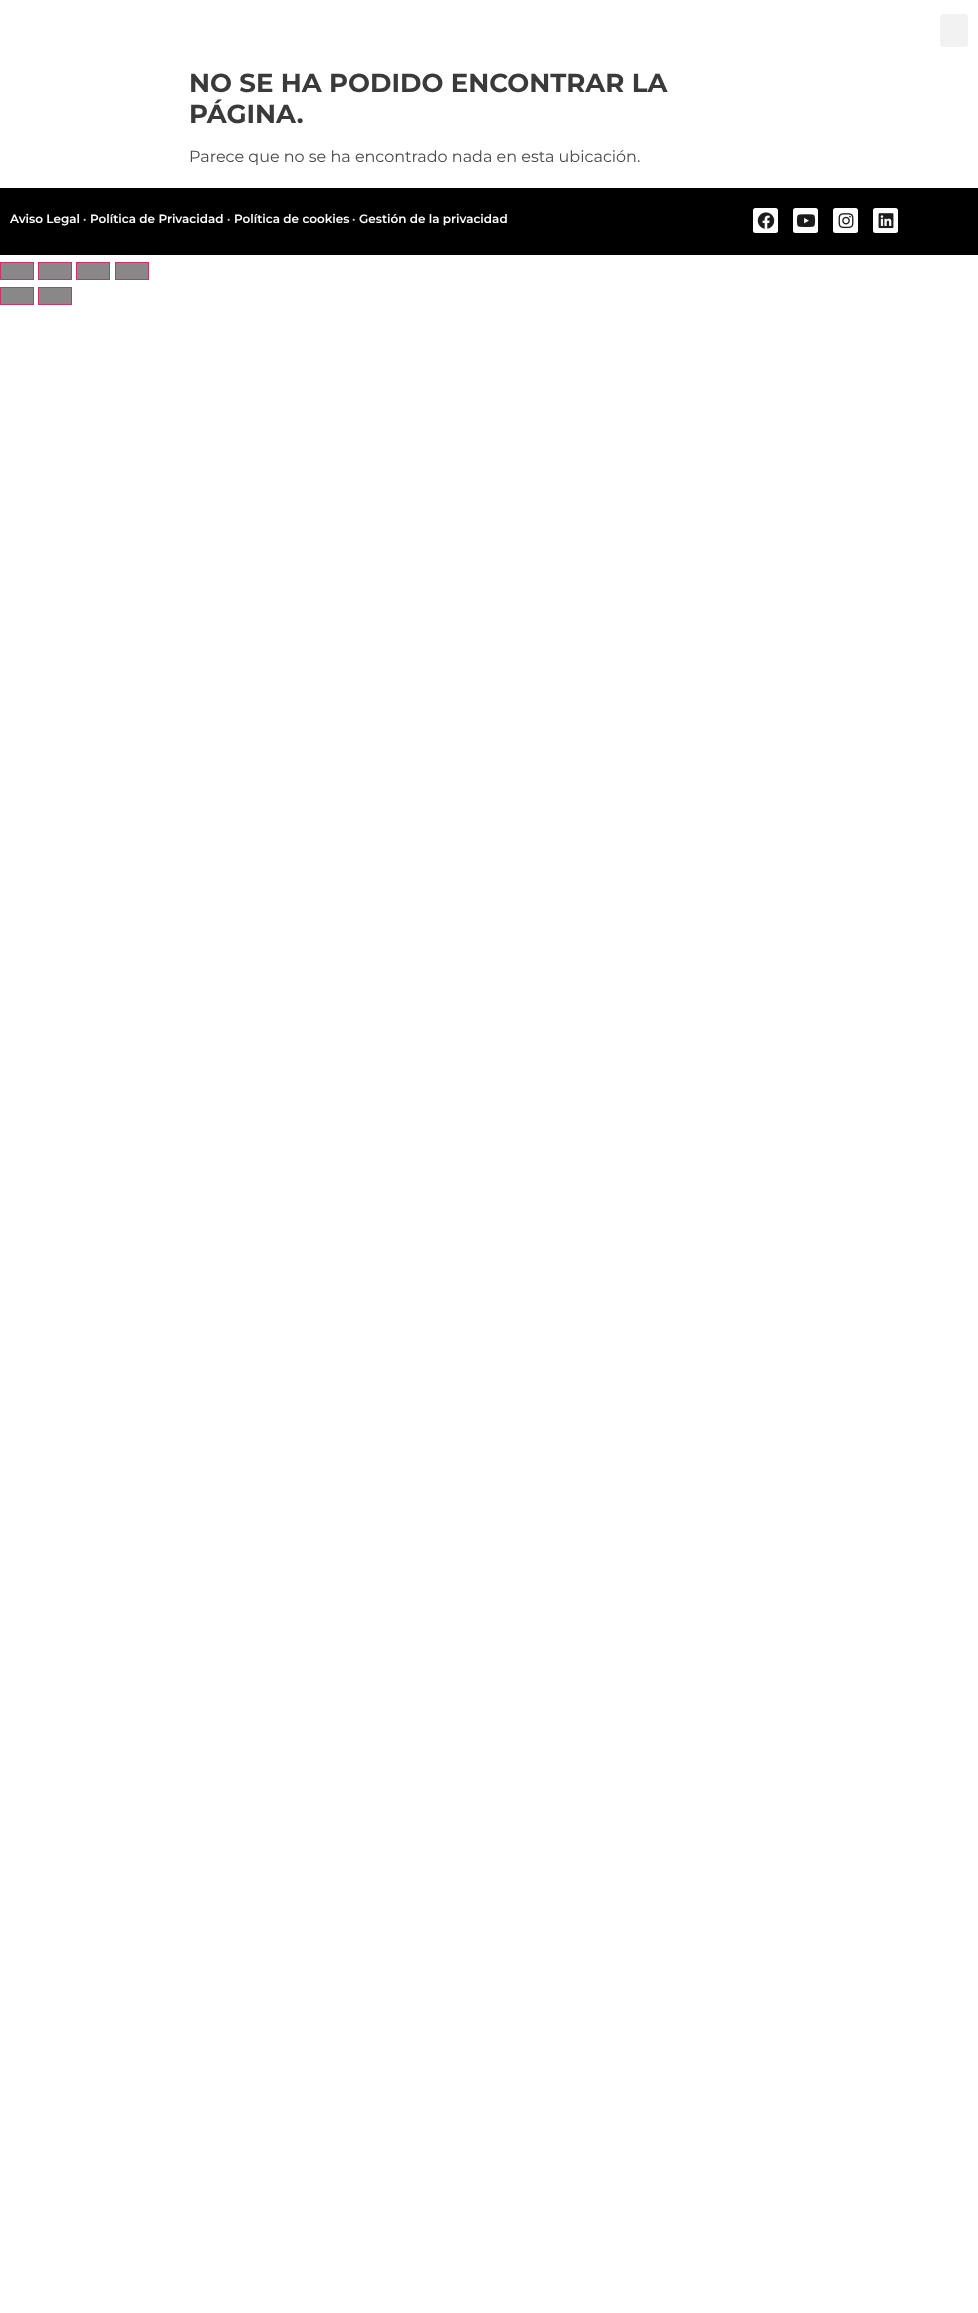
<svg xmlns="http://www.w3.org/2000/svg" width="978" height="2313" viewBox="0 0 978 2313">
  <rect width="100%" height="100%" fill="rgb(255,255,255)"/>
  <rect x="940" y="14" width="28" height="33" rx="3" fill="rgb(242,242,242)"/>
  <g font-family="Montserrat" font-size="26" font-weight="bold" fill="rgb(58,58,58)">
    <text>
      <tspan x="189" y="92">NO SE HA PODIDO ENCONTRAR LA</tspan>
      <tspan x="189" y="123">PÁGINA.</tspan>
    </text>
  </g>
  <text x="189" y="162" font-family="Montserrat" font-size="16" fill="rgb(73,73,73)">Parece que no se ha encontrado nada en esta ubicación.</text>
  <rect x="0" y="188" width="978" height="67" fill="rgb(0,0,0)"/>
  <text x="10" y="223" font-family="Montserrat" font-size="12" font-weight="600" fill="rgb(255,255,255)">Aviso Legal</text>
  <text x="83" y="223" font-family="Montserrat" font-size="12" font-weight="600" fill="rgb(227,227,227)">·</text>
  <text x="90" y="223" font-family="Montserrat" font-size="12" font-weight="600" fill="rgb(255,255,255)">Política de Privacidad</text>
  <text x="227" y="223" font-family="Montserrat" font-size="12" font-weight="600" fill="rgb(227,227,227)">·</text>
  <text x="234" y="223" font-family="Montserrat" font-size="12" font-weight="600" fill="rgb(255,255,255)">Política de cookies</text>
  <text x="352" y="223" font-family="Montserrat" font-size="12" font-weight="600" fill="rgb(227,227,227)">·</text>
  <text x="359" y="223" font-family="Montserrat" font-size="12" font-weight="600" fill="rgb(255,255,255)">Gestión de la privacidad</text>
  <rect x="753" y="208" width="25" height="25" rx="2.5" fill="rgb(255,255,255)"/>
  <image x="757" y="212" width="18" height="17" href="pic1.png"/>
  <rect x="793" y="208" width="25" height="25" rx="2.5" fill="rgb(255,255,255)"/>
  <image x="796" y="214" width="20" height="13" href="pic2.png"/>
  <rect x="833" y="208" width="25" height="25" rx="2.5" fill="rgb(255,255,255)"/>
  <image x="838" y="213" width="16" height="16" href="pic3.png"/>
  <rect x="873" y="208" width="25" height="25" rx="2.5" fill="rgb(255,255,255)"/>
  <image x="878" y="213" width="16" height="16" href="pic4.png"/>
  <rect x="0.5" y="262.5" width="33" height="17" fill="rgb(136,136,136)" stroke="rgb(204,51,102)"/>
  <rect x="38.5" y="262.5" width="33" height="17" fill="rgb(136,136,136)" stroke="rgb(204,51,102)"/>
  <rect x="76.5" y="262.5" width="33" height="17" fill="rgb(136,136,136)" stroke="rgb(204,51,102)"/>
  <rect x="115.5" y="262.5" width="33" height="17" fill="rgb(136,136,136)" stroke="rgb(204,51,102)"/>
  <rect x="0.5" y="287.5" width="33" height="17" fill="rgb(136,136,136)" stroke="rgb(204,51,102)"/>
  <rect x="38.5" y="287.5" width="33" height="17" fill="rgb(136,136,136)" stroke="rgb(204,51,102)"/>
</svg>
